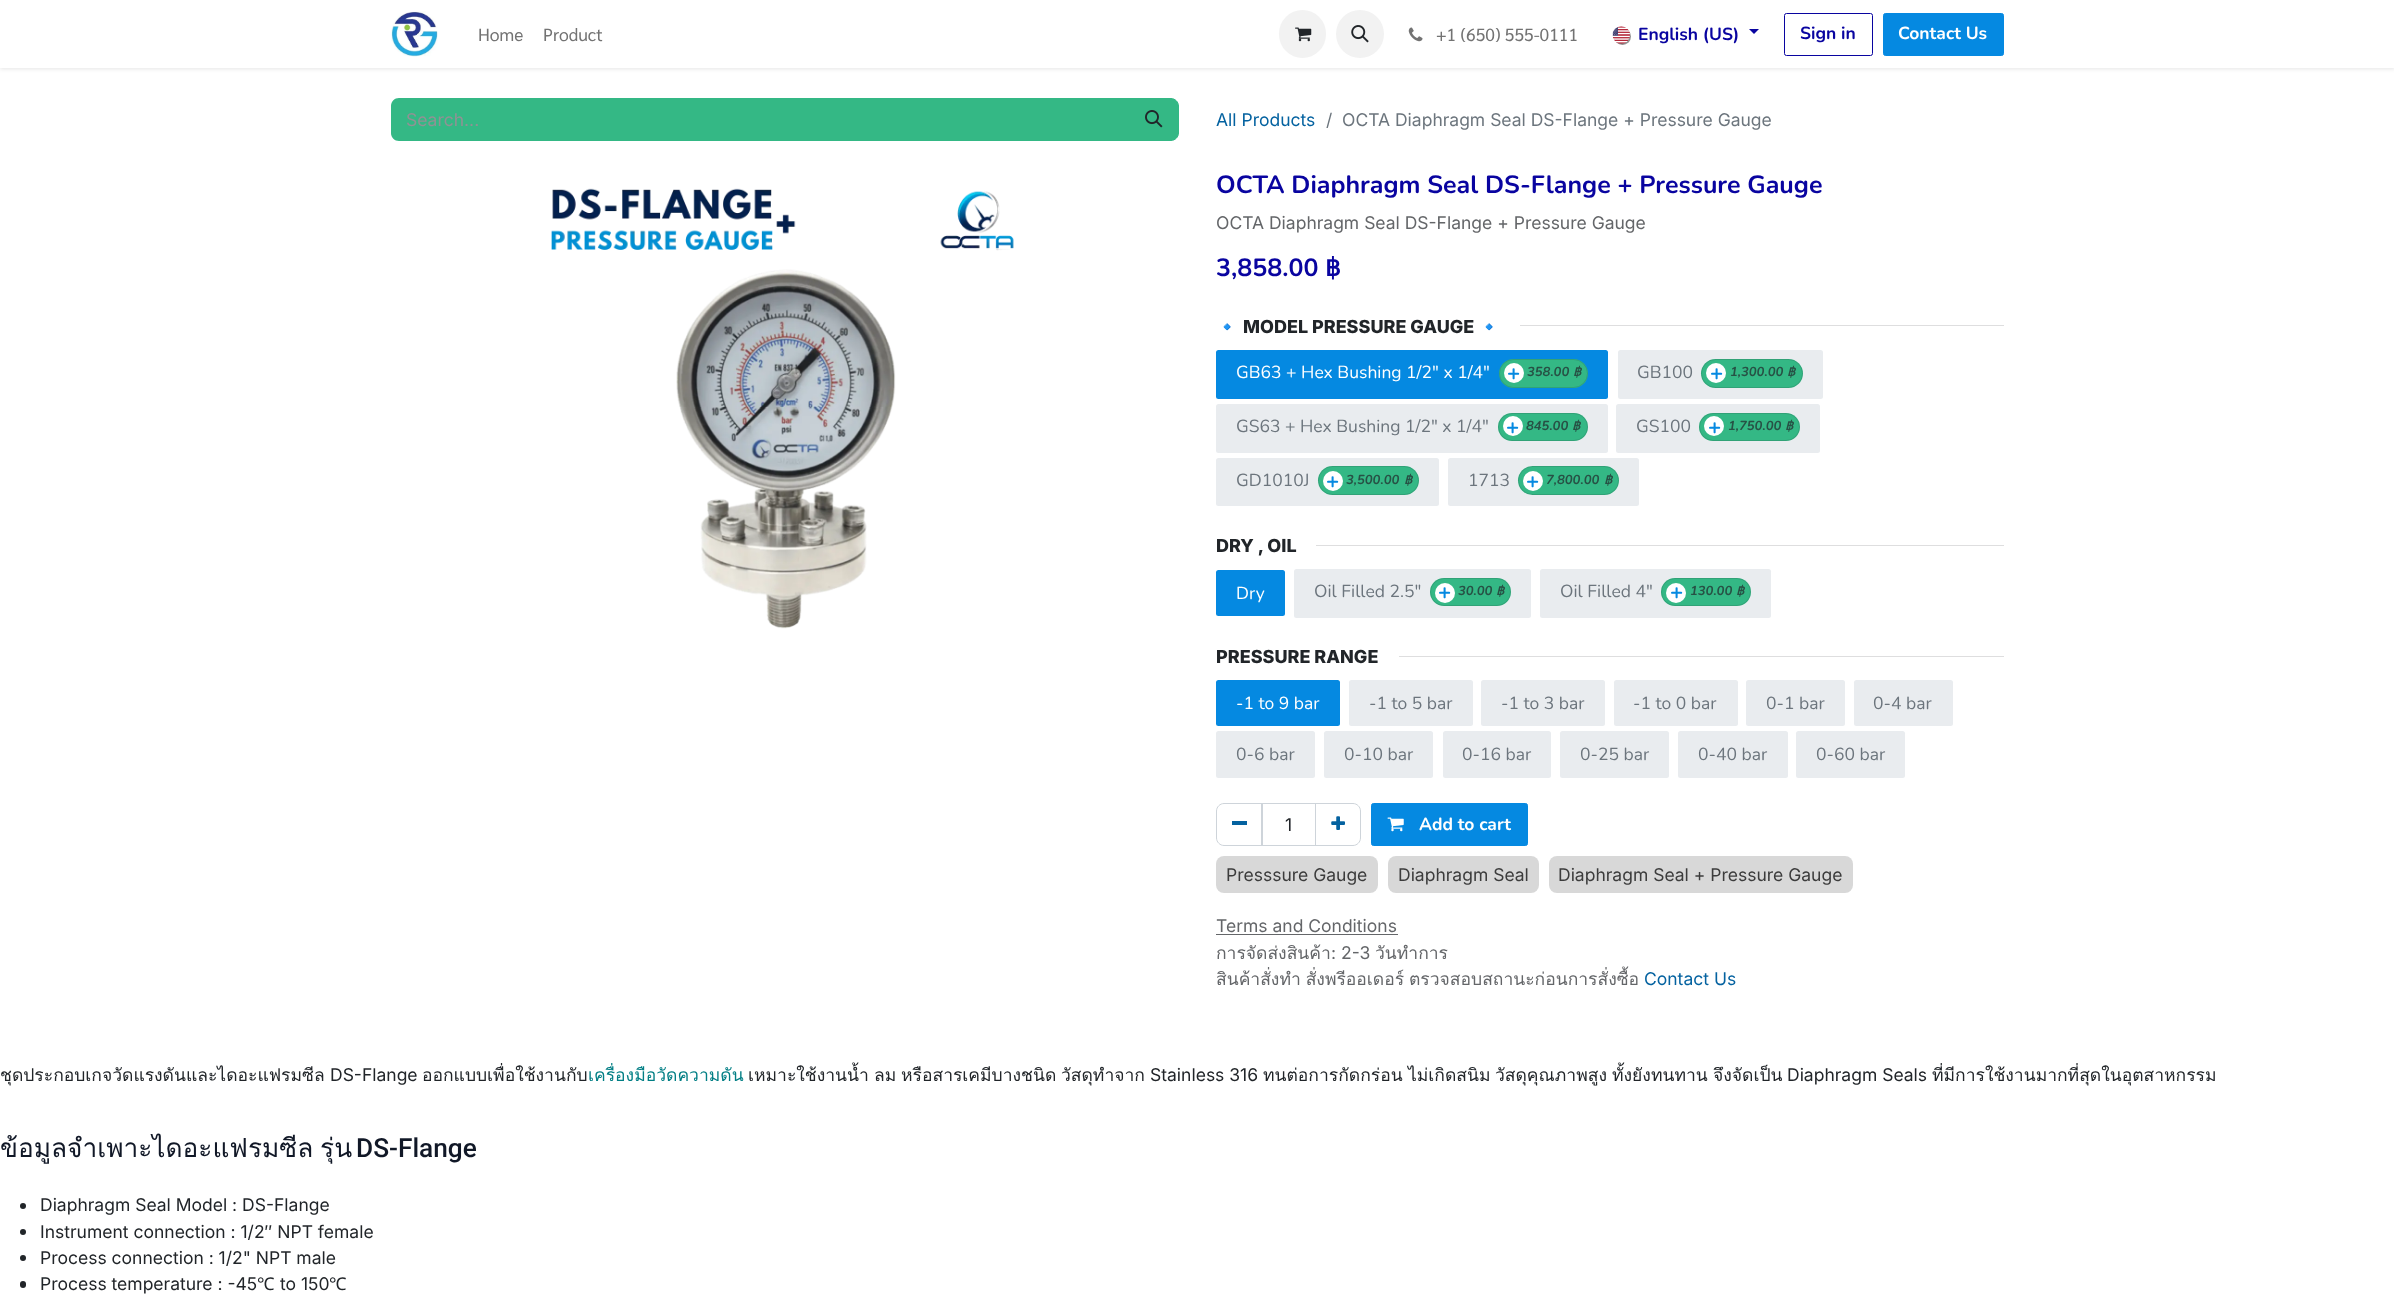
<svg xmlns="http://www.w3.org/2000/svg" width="2394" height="1295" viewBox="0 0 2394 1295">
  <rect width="100%" height="100%" fill="rgb(255,255,255)"/>
  <rect x="0" y="1" width="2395" height="68" fill="rgba(0,0,0,0.1)" filter="blur(2px)"/>
  <rect x="0" y="0" width="2394" height="68" fill="rgb(255,255,255)"/>
  <image x="391" y="11" width="47" height="46" href="pic1.png"/>
  <g font-family="Sarabun" font-size="17.5" fill="rgb(115,115,115)">
    <text x="478" y="41">Home</text>
    <text x="543" y="41">Product</text>
  </g>
  <rect x="1279" y="10" width="47" height="48" rx="23.5" fill="rgb(242,242,242)"/>
  <image x="1295" y="27" width="17" height="15" href="pic2.png"/>
  <circle cx="1360" cy="34" r="24" fill="rgb(242,242,242)"/>
  <image x="1351" y="25" width="18" height="18" href="pic3.png"/>
  <image x="1408" y="27" width="15" height="15" href="pic4.png"/>
  <text x="1436" y="41" font-family="Sarabun" font-size="17.5" fill="rgb(115,115,115)">+1 (650) 555-0111</text>
  <rect x="1614" y="28" width="17" height="17" rx="8.5" fill="rgba(0,0,0,0.43)" filter="blur(0.5px)"/>
  <image x="1612" y="26" width="18" height="18" href="pic5.png"/>
  <text x="1638" y="40" font-family="Nunito" font-size="17.5" font-weight="bold" fill="rgb(9,4,160)">English (US)</text>
  <path d="M1749 29H1759L1754 34Z" fill="rgb(9,4,160)"/>
  <rect x="1784.5" y="13.5" width="88" height="42" rx="2" fill="none" stroke="rgb(9,4,160)"/>
  <text x="1800" y="39" font-family="Nunito" font-size="17.5" font-weight="bold" fill="rgb(9,4,160)">Sign in</text>
  <rect x="1883.5" y="13.5" width="120" height="42" rx="2" fill="rgb(5,137,225)" stroke="rgb(5,137,225)"/>
  <text x="1898" y="39" font-family="Nunito" font-size="17.5" font-weight="bold" fill="rgb(255,255,255)">Contact Us</text>
  <path d="M399 98H1130V141H399C394.5 141 391 137.5 391 133V106C391 101.5 394.5 98 399 98Z" fill="rgb(52,184,133)"/>
  <text x="406" y="126" font-family="Inter" font-size="17.5" fill="rgb(144,146,148)">Search...</text>
  <path d="M1129.5 98.5H1171C1175 98.5 1178.5 102 1178.5 106V133C1178.5 137 1175 140.5 1171 140.5H1129.5Z" fill="rgb(52,184,133)" stroke="rgb(52,184,133)"/>
  <image x="1145" y="110" width="18" height="18" href="pic6.png"/>
  <text x="1216" y="126" font-family="Inter" font-size="17.5" fill="rgb(4,98,160)">All Products</text>
  <g font-family="Inter" font-size="17.5" fill="rgb(108,117,125)">
    <text x="1326" y="126">/</text>
    <text x="1342" y="126">OCTA Diaphragm Seal DS-Flange + Pressure Gauge</text>
  </g>
  <image x="551" y="188" width="463" height="441" href="pic7.png"/>
  <text x="1216" y="193" font-family="Nunito" font-size="25" font-weight="bold" fill="rgb(9,4,160)">OCTA Diaphragm Seal DS-Flange + Pressure Gauge</text>
  <text x="1216" y="229" font-family="Inter" font-size="17.5" fill="rgb(100,102,105)">OCTA Diaphragm Seal DS-Flange + Pressure Gauge</text>
  <text x="1216" y="276" font-family="Nunito" font-size="25" font-weight="bold" fill="rgb(9,4,160)">3,858.00</text>
  <text x="1325" y="276" font-family="DejaVu Sans" font-size="25" font-weight="bold" fill="rgb(9,4,160)">฿</text>
  <text x="1216" y="333" font-family="Noto Color Emoji" font-size="18" font-weight="bold" fill="rgb(33,37,41)">🔹</text>
  <text x="1243" y="333" font-family="Inter" font-size="18" font-weight="800" fill="rgb(33,37,41)">MODEL PRESSURE GAUGE</text>
  <text x="1478" y="333" font-family="Noto Color Emoji" font-size="18" font-weight="bold" fill="rgb(33,37,41)">🔹</text>
  <rect x="1520" y="325" width="484" height="1" fill="rgb(222,222,223)"/>
  <rect x="1216" y="350" width="392" height="49" rx="2.5" fill="rgb(5,137,225)"/>
  <text x="1236" y="378" font-family="Nunito" font-size="17.5" fill="rgb(255,255,255)">GB63 + Hex Bushing 1/2" x 1/4"</text>
  <rect x="1499" y="359" width="89" height="29" rx="14.5" fill="rgb(52,184,133)"/>
  <rect x="1499.5" y="359.5" width="88" height="28" rx="14" fill="none" stroke="rgba(33,37,41,0.15)"/>
  <circle cx="1514" cy="373" r="10" fill="rgb(255,255,255)"/>
  <text x="1507" y="380" font-family="Nunito" font-size="22" font-weight="bold" fill="rgb(5,137,225)">+</text>
  <text x="1527" y="376" font-family="Nunito" font-size="13" font-weight="bold" font-style="italic" fill="rgb(39,81,69)">358.00</text>
  <text x="1573" y="376" font-family="DejaVu Sans" font-size="13" font-weight="bold" font-style="italic" fill="rgb(39,81,69)">฿</text>
  <rect x="1618" y="350" width="205" height="49" rx="2.5" fill="rgb(233,236,239)"/>
  <text x="1637" y="378" font-family="Nunito" font-size="17.5" fill="rgb(108,117,125)">GB100</text>
  <rect x="1701" y="359" width="102" height="29" rx="14.5" fill="rgb(52,184,133)"/>
  <rect x="1701.5" y="359.5" width="101" height="28" rx="14" fill="none" stroke="rgba(33,37,41,0.15)"/>
  <circle cx="1716" cy="373" r="10" fill="rgb(255,255,255)"/>
  <text x="1710" y="380" font-family="Nunito" font-size="22" font-weight="bold" fill="rgb(5,137,225)">+</text>
  <text x="1730" y="376" font-family="Nunito" font-size="13" font-weight="bold" font-style="italic" fill="rgb(39,81,69)">1,300.00</text>
  <text x="1787" y="376" font-family="DejaVu Sans" font-size="13" font-weight="bold" font-style="italic" fill="rgb(39,81,69)">฿</text>
  <rect x="1216" y="404" width="392" height="49" rx="2.5" fill="rgb(233,236,239)"/>
  <text x="1236" y="432" font-family="Nunito" font-size="17.5" fill="rgb(108,117,125)">GS63 + Hex Bushing 1/2" x 1/4"</text>
  <rect x="1498" y="413" width="90" height="28" rx="14" fill="rgb(52,184,133)"/>
  <rect x="1498.5" y="413.5" width="89" height="27" rx="13.5" fill="none" stroke="rgba(33,37,41,0.15)"/>
  <circle cx="1513" cy="426" r="10" fill="rgb(255,255,255)"/>
  <text x="1506" y="434" font-family="Nunito" font-size="22" font-weight="bold" fill="rgb(5,137,225)">+</text>
  <text x="1526" y="430" font-family="Nunito" font-size="13" font-weight="bold" font-style="italic" fill="rgb(39,81,69)">845.00</text>
  <text x="1572" y="430" font-family="DejaVu Sans" font-size="13" font-weight="bold" font-style="italic" fill="rgb(39,81,69)">฿</text>
  <rect x="1616" y="404" width="204" height="49" rx="2.5" fill="rgb(233,236,239)"/>
  <text x="1636" y="432" font-family="Nunito" font-size="17.5" fill="rgb(108,117,125)">GS100</text>
  <rect x="1699" y="413" width="101" height="28" rx="14" fill="rgb(52,184,133)"/>
  <rect x="1699.5" y="413.5" width="100" height="27" rx="13.5" fill="none" stroke="rgba(33,37,41,0.15)"/>
  <circle cx="1714" cy="426" r="10" fill="rgb(255,255,255)"/>
  <text x="1708" y="434" font-family="Nunito" font-size="22" font-weight="bold" fill="rgb(5,137,225)">+</text>
  <text x="1728" y="430" font-family="Nunito" font-size="13" font-weight="bold" font-style="italic" fill="rgb(39,81,69)">1,750.00</text>
  <text x="1785" y="430" font-family="DejaVu Sans" font-size="13" font-weight="bold" font-style="italic" fill="rgb(39,81,69)">฿</text>
  <rect x="1216" y="458" width="223" height="48" rx="2.5" fill="rgb(233,236,239)"/>
  <text x="1236" y="486" font-family="Nunito" font-size="17.5" fill="rgb(108,117,125)">GD1010J</text>
  <rect x="1318" y="466" width="101" height="29" rx="14.5" fill="rgb(52,184,133)"/>
  <rect x="1318.5" y="466.5" width="100" height="28" rx="14" fill="none" stroke="rgba(33,37,41,0.15)"/>
  <circle cx="1333" cy="481" r="10" fill="rgb(255,255,255)"/>
  <text x="1326" y="488" font-family="Nunito" font-size="22" font-weight="bold" fill="rgb(5,137,225)">+</text>
  <text x="1346" y="484" font-family="Nunito" font-size="13" font-weight="bold" font-style="italic" fill="rgb(39,81,69)">3,500.00</text>
  <text x="1404" y="484" font-family="DejaVu Sans" font-size="13" font-weight="bold" font-style="italic" fill="rgb(39,81,69)">฿</text>
  <rect x="1448" y="458" width="191" height="48" rx="2.5" fill="rgb(233,236,239)"/>
  <text x="1468" y="486" font-family="Nunito" font-size="17.5" fill="rgb(108,117,125)">1713</text>
  <rect x="1518" y="466" width="101" height="29" rx="14.5" fill="rgb(52,184,133)"/>
  <rect x="1518.5" y="466.5" width="100" height="28" rx="14" fill="none" stroke="rgba(33,37,41,0.15)"/>
  <circle cx="1533" cy="481" r="10" fill="rgb(255,255,255)"/>
  <text x="1526" y="488" font-family="Nunito" font-size="22" font-weight="bold" fill="rgb(5,137,225)">+</text>
  <text x="1546" y="484" font-family="Nunito" font-size="13" font-weight="bold" font-style="italic" fill="rgb(39,81,69)">7,800.00</text>
  <text x="1604" y="484" font-family="DejaVu Sans" font-size="13" font-weight="bold" font-style="italic" fill="rgb(39,81,69)">฿</text>
  <text x="1216" y="552" font-family="Inter" font-size="18" font-weight="800" fill="rgb(33,37,41)">DRY , OIL</text>
  <rect x="1316" y="545" width="688" height="1" fill="rgb(222,222,223)"/>
  <rect x="1216" y="570" width="69" height="46" rx="2.5" fill="rgb(5,137,225)"/>
  <text x="1236" y="599" font-family="Nunito" font-size="17.5" fill="rgb(255,255,255)">Dry</text>
  <rect x="1294" y="569" width="237" height="49" rx="2.5" fill="rgb(233,236,239)"/>
  <text x="1314" y="597" font-family="Nunito" font-size="17.5" fill="rgb(108,117,125)">Oil Filled 2.5"</text>
  <rect x="1430" y="578" width="81" height="28" rx="14" fill="rgb(52,184,133)"/>
  <rect x="1430.5" y="578.5" width="80" height="27" rx="13.5" fill="none" stroke="rgba(33,37,41,0.15)"/>
  <circle cx="1445" cy="593" r="10" fill="rgb(255,255,255)"/>
  <text x="1438" y="599" font-family="Nunito" font-size="22" font-weight="bold" fill="rgb(5,137,225)">+</text>
  <text x="1458" y="595" font-family="Nunito" font-size="13" font-weight="bold" font-style="italic" fill="rgb(39,81,69)">30.00</text>
  <text x="1496" y="595" font-family="DejaVu Sans" font-size="13" font-weight="bold" font-style="italic" fill="rgb(39,81,69)">฿</text>
  <rect x="1540" y="569" width="231" height="49" rx="2.5" fill="rgb(233,236,239)"/>
  <text x="1560" y="597" font-family="Nunito" font-size="17.5" fill="rgb(108,117,125)">Oil Filled 4"</text>
  <rect x="1661" y="578" width="90" height="28" rx="14" fill="rgb(52,184,133)"/>
  <rect x="1661.5" y="578.5" width="89" height="27" rx="13.5" fill="none" stroke="rgba(33,37,41,0.15)"/>
  <circle cx="1676" cy="593" r="10" fill="rgb(255,255,255)"/>
  <text x="1670" y="599" font-family="Nunito" font-size="22" font-weight="bold" fill="rgb(5,137,225)">+</text>
  <text x="1690" y="595" font-family="Nunito" font-size="13" font-weight="bold" font-style="italic" fill="rgb(39,81,69)">130.00</text>
  <text x="1736" y="595" font-family="DejaVu Sans" font-size="13" font-weight="bold" font-style="italic" fill="rgb(39,81,69)">฿</text>
  <text x="1216" y="663" font-family="Inter" font-size="18" font-weight="800" fill="rgb(33,37,41)">PRESSURE RANGE</text>
  <rect x="1399" y="656" width="605" height="1" fill="rgb(222,222,223)"/>
  <rect x="1216" y="680" width="124" height="46" rx="2.5" fill="rgb(5,137,225)"/>
  <text x="1236" y="709" font-family="Nunito" font-size="17.5" fill="rgb(255,255,255)">-1 to 9 bar</text>
  <rect x="1349" y="680" width="124" height="46" rx="2.5" fill="rgb(233,236,239)"/>
  <text x="1369" y="709" font-family="Nunito" font-size="17.5" fill="rgb(108,117,125)">-1 to 5 bar</text>
  <rect x="1481" y="680" width="124" height="46" rx="2.5" fill="rgb(233,236,239)"/>
  <text x="1501" y="709" font-family="Nunito" font-size="17.5" fill="rgb(108,117,125)">-1 to 3 bar</text>
  <rect x="1614" y="680" width="124" height="46" rx="2.5" fill="rgb(233,236,239)"/>
  <text x="1633" y="709" font-family="Nunito" font-size="17.5" fill="rgb(108,117,125)">-1 to 0 bar</text>
  <rect x="1746" y="680" width="99" height="46" rx="2.5" fill="rgb(233,236,239)"/>
  <text x="1766" y="709" font-family="Nunito" font-size="17.5" fill="rgb(108,117,125)">0-1 bar</text>
  <rect x="1854" y="680" width="99" height="46" rx="2.5" fill="rgb(233,236,239)"/>
  <text x="1873" y="709" font-family="Nunito" font-size="17.5" fill="rgb(108,117,125)">0-4 bar</text>
  <rect x="1216" y="731" width="99" height="47" rx="2.5" fill="rgb(233,236,239)"/>
  <text x="1236" y="760" font-family="Nunito" font-size="17.5" fill="rgb(108,117,125)">0-6 bar</text>
  <rect x="1324" y="731" width="109" height="47" rx="2.5" fill="rgb(233,236,239)"/>
  <text x="1344" y="760" font-family="Nunito" font-size="17.5" fill="rgb(108,117,125)">0-10 bar</text>
  <rect x="1443" y="731" width="108" height="47" rx="2.5" fill="rgb(233,236,239)"/>
  <text x="1462" y="760" font-family="Nunito" font-size="17.5" fill="rgb(108,117,125)">0-16 bar</text>
  <rect x="1560" y="731" width="109" height="47" rx="2.5" fill="rgb(233,236,239)"/>
  <text x="1580" y="760" font-family="Nunito" font-size="17.5" fill="rgb(108,117,125)">0-25 bar</text>
  <rect x="1678" y="731" width="110" height="47" rx="2.5" fill="rgb(233,236,239)"/>
  <text x="1698" y="760" font-family="Nunito" font-size="17.5" fill="rgb(108,117,125)">0-40 bar</text>
  <rect x="1796" y="731" width="109" height="47" rx="2.5" fill="rgb(233,236,239)"/>
  <text x="1816" y="760" font-family="Nunito" font-size="17.5" fill="rgb(108,117,125)">0-60 bar</text>
  <rect x="1261.5" y="803.5" width="54" height="42" fill="none" stroke="rgb(206,212,218)"/>
  <path d="M1224 803.5H1262.5V845.5H1224C1220 845.5 1216.5 842 1216.5 838V811C1216.5 807 1220 803.5 1224 803.5Z" fill="none" stroke="rgb(206,212,218)"/>
  <rect x="1232" y="821" width="15" height="4" fill="rgb(4,98,160)"/>
  <text x="1285" y="831" font-family="Inter" font-size="17.5" fill="rgb(33,37,41)">1</text>
  <path d="M1315.5 803.5H1353C1357 803.5 1360.5 807 1360.5 811V838C1360.5 842 1357 845.5 1353 845.5H1315.5Z" fill="none" stroke="rgb(206,212,218)"/>
  <image x="1331" y="816" width="14" height="14" href="pic8.png"/>
  <rect x="1371.5" y="803.5" width="156" height="42" rx="2" fill="rgb(5,137,225)" stroke="rgb(5,137,225)"/>
  <image x="1387" y="817" width="17" height="15" href="pic9.png"/>
  <text x="1419" y="830" font-family="Nunito" font-size="17.5" font-weight="bold" fill="rgb(255,255,255)">Add to cart</text>
  <text x="1226" y="881" font-family="Inter" font-size="17.5" fill="rgb(60,60,60)">Presssure Gauge</text>
  <rect x="1216" y="856" width="162" height="37" rx="8" fill="rgba(60,60,60,0.2)"/>
  <text x="1398" y="881" font-family="Inter" font-size="17.5" fill="rgb(60,60,60)">Diaphragm Seal</text>
  <rect x="1388" y="856" width="151" height="37" rx="8" fill="rgba(60,60,60,0.2)"/>
  <text x="1558" y="881" font-family="Inter" font-size="17.5" fill="rgb(60,60,60)">Diaphragm Seal + Pressure Gauge</text>
  <rect x="1549" y="856" width="304" height="37" rx="8" fill="rgba(60,60,60,0.2)"/>
  <text x="1216" y="932" font-family="Inter" font-size="17.5" fill="rgb(100,102,105)">Terms and Conditions</text>
  <rect x="1216" y="934" width="182" height="1" fill="rgb(100,102,105)"/>
  <text x="1216" y="959" font-family="Loma" font-size="17.5" fill="rgb(100,102,105)">การจัดส่งสินค้า</text>
  <text x="1331" y="959" font-family="Inter" font-size="17.5" fill="rgb(100,102,105)">: 2-3</text>
  <g font-family="Loma" font-size="17.5" fill="rgb(100,102,105)">
    <text x="1375" y="959">วันทำการ</text>
    <text x="1216" y="985" word-spacing="-1">สินค้าสั่งทำ สั่งพรีออเดอร์ ตรวจสอบสถานะก่อนการสั่งซื้อ</text>
  </g>
  <text x="1644" y="985" font-family="Inter" font-size="17.5" fill="rgb(4,98,160)">Contact Us</text>
  <text x="0" y="1081" font-family="Loma" font-size="17.5" fill="rgb(33,37,41)">ชุดประกอบเกจวัดแรงดันและไดอะแฟรมซีล</text>
  <text x="330" y="1081" font-family="Inter" font-size="17.5" fill="rgb(33,37,41)">DS-Flange</text>
  <text x="422" y="1081" font-family="Loma" font-size="17.5" fill="rgb(33,37,41)">ออกแบบเพื่อใช้งานกับ</text>
  <text x="588" y="1081" font-family="Loma" font-size="17.5" fill="rgb(1,126,132)">เครื่องมือวัดความดัน</text>
  <g font-family="Loma" font-size="17.5" fill="rgb(33,37,41)">
    <text x="748" y="1081">เหมาะใช้งานน้ำ</text>
    <text x="874" y="1081">ลม</text>
    <text x="901" y="1081">หรือสารเคมีบางชนิด</text>
    <text x="1061" y="1081">วัสดุทำจาก</text>
  </g>
  <text x="1150" y="1081" font-family="Inter" font-size="17.5" fill="rgb(33,37,41)">Stainless 316</text>
  <g font-family="Loma" font-size="17.5" fill="rgb(33,37,41)">
    <text x="1263" y="1081">ทนต่อการกัดกร่อน</text>
    <text x="1408" y="1081">ไม่เกิดสนิม</text>
    <text x="1495" y="1081">วัสดุคุณภาพสูง</text>
    <text x="1612" y="1081">ทั้งยังทนทาน</text>
    <text x="1713" y="1081">จึงจัดเป็น</text>
  </g>
  <text x="1787" y="1081" font-family="Inter" font-size="17.5" fill="rgb(33,37,41)">Diaphragm Seals</text>
  <text x="1932" y="1081" font-family="Loma" font-size="17.5" fill="rgb(33,37,41)">ที่มีการใช้งานมากที่สุดในอุตสาหกรรม</text>
  <text x="0" y="1157" word-spacing="-2" font-family="Loma" font-size="26.25" fill="rgb(17,24,39)">ข้อมูลจำเพาะไดอะแฟรมซีล รุ่น</text>
  <text x="356" y="1157" font-family="Roboto" font-size="26.25" font-weight="500" fill="rgb(17,24,39)">DS-Flange</text>
  <circle cx="23" cy="1206" r="3" fill="rgb(33,37,41)"/>
  <text x="40" y="1211" font-family="Inter" font-size="17.5" fill="rgb(33,37,41)">Diaphragm Seal Model : DS-Flange</text>
  <circle cx="23" cy="1232" r="3" fill="rgb(33,37,41)"/>
  <text x="40" y="1238" font-family="Inter" font-size="17.5" fill="rgb(33,37,41)">Instrument connection : 1/2″ NPT female</text>
  <circle cx="23" cy="1258" r="3" fill="rgb(33,37,41)"/>
  <text x="40" y="1264" font-family="Inter" font-size="17.5" fill="rgb(33,37,41)">Process connection : 1/2" NPT male</text>
  <rect x="20" y="1281" width="6" height="7" rx="3" fill="rgb(33,37,41)"/>
  <text x="40" y="1290" font-family="Inter" font-size="17.5" fill="rgb(33,37,41)">Process temperature : -45</text>
  <text x="257" y="1290" font-family="Noto Sans" font-size="17.5" fill="rgb(33,37,41)">℃</text>
  <text x="280" y="1290" font-family="Inter" font-size="17.5" fill="rgb(33,37,41)">to 150</text>
  <text x="329" y="1290" font-family="Noto Sans" font-size="17.5" fill="rgb(33,37,41)">℃</text>
</svg>
